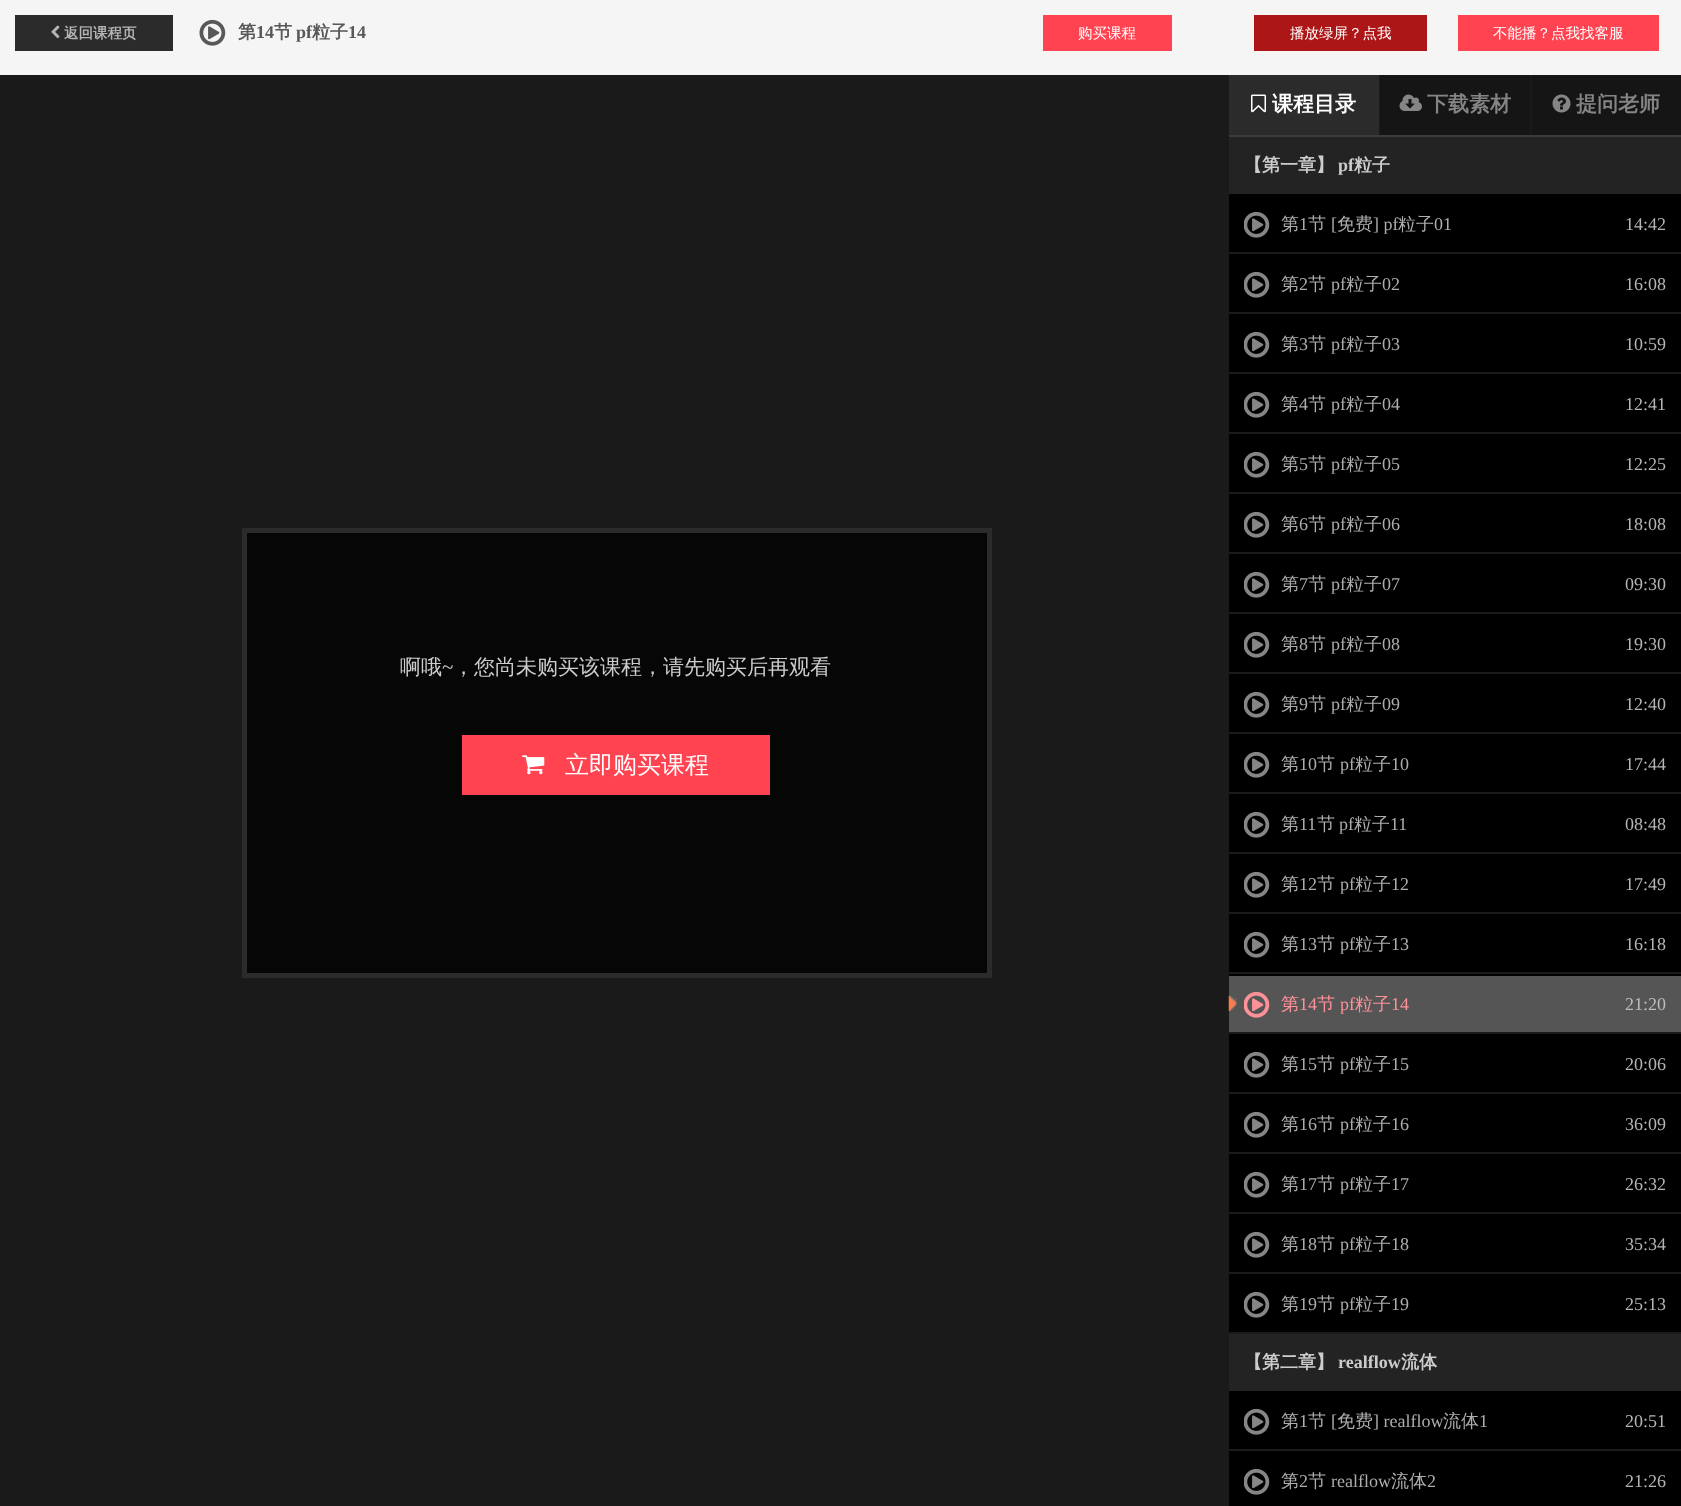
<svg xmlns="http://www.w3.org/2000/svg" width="1681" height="1506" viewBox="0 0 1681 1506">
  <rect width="100%" height="100%" fill="rgb(26,26,26)"/>
  <rect x="0" y="0" width="1681" height="75" fill="rgb(245,245,245)"/>
  <rect x="15" y="15" width="158" height="36" fill="rgb(43,43,43)"/>
  <image x="51" y="25" width="9" height="14" href="pic1.png"/>
  <text x="64" y="38" font-family="WenQuanYi Zen Hei" font-size="14.5" font-weight="bold" fill="rgb(181,181,181)">返回课程页</text>
  <image x="199" y="19" width="27" height="27" href="pic2.png"/>
  <text x="238" y="38" font-family="WenQuanYi Zen Hei" font-size="18" font-weight="bold" fill="rgb(88,88,88)">第</text>
  <text x="256" y="38" font-family="Liberation Serif" font-size="18" font-weight="bold" fill="rgb(88,88,88)">14</text>
  <text x="274" y="38" font-family="WenQuanYi Zen Hei" font-size="18" font-weight="bold" fill="rgb(88,88,88)">节</text>
  <text x="296" y="38" font-family="Liberation Serif" font-size="18" font-weight="bold" fill="rgb(88,88,88)">pf</text>
  <text x="312" y="38" font-family="WenQuanYi Zen Hei" font-size="18" font-weight="bold" fill="rgb(88,88,88)">粒子</text>
  <text x="348" y="38" font-family="Liberation Serif" font-size="18" font-weight="bold" fill="rgb(88,88,88)">14</text>
  <rect x="1043" y="15" width="129" height="36" fill="rgb(255,67,81)"/>
  <text x="1078" y="38" font-family="WenQuanYi Zen Hei" font-size="14.5" font-weight="500" fill="rgb(255,255,255)">购买课程</text>
  <rect x="1254" y="15" width="173" height="36" fill="rgb(173,22,22)"/>
  <text x="1290" y="38" font-family="WenQuanYi Zen Hei" font-size="14.5" font-weight="500" fill="rgb(255,255,255)">播放绿屏？点我</text>
  <rect x="1458" y="15" width="201" height="36" fill="rgb(255,67,81)"/>
  <text x="1493" y="38" font-family="WenQuanYi Zen Hei" font-size="14.5" font-weight="500" fill="rgb(255,255,255)">不能播？点我找客服</text>
  <rect x="244.5" y="530.5" width="745" height="445" fill="rgb(6,6,6)" stroke="rgb(43,43,43)" stroke-width="5"/>
  <text x="400" y="674" font-family="WenQuanYi Zen Hei" font-size="21" font-weight="500" fill="rgb(204,204,204)">啊哦</text>
  <text x="442" y="674" font-family="Liberation Serif" font-size="21" fill="rgb(204,204,204)">~</text>
  <text x="453" y="674" font-family="WenQuanYi Zen Hei" font-size="21" font-weight="500" fill="rgb(204,204,204)">，您尚未购买该课程，请先购买后再观看</text>
  <rect x="462" y="735" width="308" height="60" fill="rgb(255,67,81)"/>
  <image x="522" y="755" width="23" height="20" href="pic3.png"/>
  <text x="565" y="773" font-family="WenQuanYi Zen Hei" font-size="24" font-weight="500" fill="rgb(255,255,255)">立即购买课程</text>
  <rect x="1229" y="75" width="150" height="60" fill="rgb(43,43,43)"/>
  <image x="1251" y="94" width="15" height="19" href="pic4.png"/>
  <text x="1272" y="111" font-family="WenQuanYi Zen Hei" font-size="21" font-weight="bold" fill="rgb(255,255,255)">课程目录</text>
  <rect x="1380" y="75" width="150" height="60" fill="rgb(21,21,21)"/>
  <image x="1399" y="94" width="23" height="17" href="pic5.png"/>
  <text x="1427" y="111" font-family="WenQuanYi Zen Hei" font-size="21" font-weight="bold" fill="rgb(133,133,133)">下载素材</text>
  <rect x="1532" y="75" width="149" height="60" fill="rgb(21,21,21)"/>
  <image x="1552" y="94" width="19" height="19" href="pic6.png"/>
  <text x="1576" y="111" font-family="WenQuanYi Zen Hei" font-size="21" font-weight="bold" fill="rgb(133,133,133)">提问老师</text>
  <rect x="1229" y="135" width="452" height="2" fill="rgb(59,59,59)"/>
  <rect x="1229" y="194" width="452" height="1312" fill="rgb(0,0,0)"/>
  <rect x="1229" y="137" width="452" height="57" fill="rgb(35,35,35)"/>
  <text x="1244" y="171" font-family="WenQuanYi Zen Hei" font-size="18" font-weight="bold" fill="rgb(204,204,204)">【第一章】</text>
  <text x="1338" y="171" font-family="Liberation Serif" font-size="18" font-weight="bold" fill="rgb(204,204,204)">pf</text>
  <text x="1354" y="171" font-family="WenQuanYi Zen Hei" font-size="18" font-weight="bold" fill="rgb(204,204,204)">粒子</text>
  <rect x="1229" y="252" width="452" height="2" fill="rgb(27,27,27)"/>
  <image x="1244" y="211" width="26" height="27" href="pic7.png"/>
  <text x="1281" y="230" font-family="WenQuanYi Zen Hei" font-size="18" font-weight="500" fill="rgb(173,173,173)">第</text>
  <text x="1299" y="230" font-family="Liberation Serif" font-size="18" fill="rgb(173,173,173)">1</text>
  <text x="1308" y="230" font-family="WenQuanYi Zen Hei" font-size="18" font-weight="500" fill="rgb(173,173,173)">节</text>
  <text x="1331" y="230" font-family="Liberation Serif" font-size="18" fill="rgb(173,173,173)">[</text>
  <text x="1337" y="230" font-family="WenQuanYi Zen Hei" font-size="18" font-weight="500" fill="rgb(173,173,173)">免费</text>
  <text x="1373" y="230" font-family="Liberation Serif" font-size="18" fill="rgb(173,173,173)">] pf</text>
  <text x="1398" y="230" font-family="WenQuanYi Zen Hei" font-size="18" font-weight="500" fill="rgb(173,173,173)">粒子</text>
  <text x="1434" y="230" font-family="Liberation Serif" font-size="18" fill="rgb(173,173,173)">01</text>
  <text x="1625" y="230" font-family="Liberation Serif" font-size="18" fill="rgb(181,181,181)">14:42</text>
  <rect x="1229" y="312" width="452" height="2" fill="rgb(27,27,27)"/>
  <image x="1244" y="271" width="26" height="27" href="pic7.png"/>
  <text x="1281" y="290" font-family="WenQuanYi Zen Hei" font-size="18" font-weight="500" fill="rgb(173,173,173)">第</text>
  <text x="1299" y="290" font-family="Liberation Serif" font-size="18" fill="rgb(173,173,173)">2</text>
  <text x="1308" y="290" font-family="WenQuanYi Zen Hei" font-size="18" font-weight="500" fill="rgb(173,173,173)">节</text>
  <text x="1331" y="290" font-family="Liberation Serif" font-size="18" fill="rgb(173,173,173)">pf</text>
  <text x="1346" y="290" font-family="WenQuanYi Zen Hei" font-size="18" font-weight="500" fill="rgb(173,173,173)">粒子</text>
  <text x="1382" y="290" font-family="Liberation Serif" font-size="18" fill="rgb(173,173,173)">02</text>
  <text x="1625" y="290" font-family="Liberation Serif" font-size="18" fill="rgb(181,181,181)">16:08</text>
  <rect x="1229" y="372" width="452" height="2" fill="rgb(27,27,27)"/>
  <image x="1244" y="331" width="26" height="27" href="pic7.png"/>
  <text x="1281" y="350" font-family="WenQuanYi Zen Hei" font-size="18" font-weight="500" fill="rgb(173,173,173)">第</text>
  <text x="1299" y="350" font-family="Liberation Serif" font-size="18" fill="rgb(173,173,173)">3</text>
  <text x="1308" y="350" font-family="WenQuanYi Zen Hei" font-size="18" font-weight="500" fill="rgb(173,173,173)">节</text>
  <text x="1331" y="350" font-family="Liberation Serif" font-size="18" fill="rgb(173,173,173)">pf</text>
  <text x="1346" y="350" font-family="WenQuanYi Zen Hei" font-size="18" font-weight="500" fill="rgb(173,173,173)">粒子</text>
  <text x="1382" y="350" font-family="Liberation Serif" font-size="18" fill="rgb(173,173,173)">03</text>
  <text x="1625" y="350" font-family="Liberation Serif" font-size="18" fill="rgb(181,181,181)">10:59</text>
  <rect x="1229" y="432" width="452" height="2" fill="rgb(27,27,27)"/>
  <image x="1244" y="391" width="26" height="27" href="pic7.png"/>
  <text x="1281" y="410" font-family="WenQuanYi Zen Hei" font-size="18" font-weight="500" fill="rgb(173,173,173)">第</text>
  <text x="1299" y="410" font-family="Liberation Serif" font-size="18" fill="rgb(173,173,173)">4</text>
  <text x="1308" y="410" font-family="WenQuanYi Zen Hei" font-size="18" font-weight="500" fill="rgb(173,173,173)">节</text>
  <text x="1331" y="410" font-family="Liberation Serif" font-size="18" fill="rgb(173,173,173)">pf</text>
  <text x="1346" y="410" font-family="WenQuanYi Zen Hei" font-size="18" font-weight="500" fill="rgb(173,173,173)">粒子</text>
  <text x="1382" y="410" font-family="Liberation Serif" font-size="18" fill="rgb(173,173,173)">04</text>
  <text x="1625" y="410" font-family="Liberation Serif" font-size="18" fill="rgb(181,181,181)">12:41</text>
  <rect x="1229" y="492" width="452" height="2" fill="rgb(27,27,27)"/>
  <image x="1244" y="451" width="26" height="27" href="pic7.png"/>
  <text x="1281" y="470" font-family="WenQuanYi Zen Hei" font-size="18" font-weight="500" fill="rgb(173,173,173)">第</text>
  <text x="1299" y="470" font-family="Liberation Serif" font-size="18" fill="rgb(173,173,173)">5</text>
  <text x="1308" y="470" font-family="WenQuanYi Zen Hei" font-size="18" font-weight="500" fill="rgb(173,173,173)">节</text>
  <text x="1331" y="470" font-family="Liberation Serif" font-size="18" fill="rgb(173,173,173)">pf</text>
  <text x="1346" y="470" font-family="WenQuanYi Zen Hei" font-size="18" font-weight="500" fill="rgb(173,173,173)">粒子</text>
  <text x="1382" y="470" font-family="Liberation Serif" font-size="18" fill="rgb(173,173,173)">05</text>
  <text x="1625" y="470" font-family="Liberation Serif" font-size="18" fill="rgb(181,181,181)">12:25</text>
  <rect x="1229" y="552" width="452" height="2" fill="rgb(27,27,27)"/>
  <image x="1244" y="511" width="26" height="27" href="pic7.png"/>
  <text x="1281" y="530" font-family="WenQuanYi Zen Hei" font-size="18" font-weight="500" fill="rgb(173,173,173)">第</text>
  <text x="1299" y="530" font-family="Liberation Serif" font-size="18" fill="rgb(173,173,173)">6</text>
  <text x="1308" y="530" font-family="WenQuanYi Zen Hei" font-size="18" font-weight="500" fill="rgb(173,173,173)">节</text>
  <text x="1331" y="530" font-family="Liberation Serif" font-size="18" fill="rgb(173,173,173)">pf</text>
  <text x="1346" y="530" font-family="WenQuanYi Zen Hei" font-size="18" font-weight="500" fill="rgb(173,173,173)">粒子</text>
  <text x="1382" y="530" font-family="Liberation Serif" font-size="18" fill="rgb(173,173,173)">06</text>
  <text x="1625" y="530" font-family="Liberation Serif" font-size="18" fill="rgb(181,181,181)">18:08</text>
  <rect x="1229" y="612" width="452" height="2" fill="rgb(27,27,27)"/>
  <image x="1244" y="571" width="26" height="27" href="pic7.png"/>
  <text x="1281" y="590" font-family="WenQuanYi Zen Hei" font-size="18" font-weight="500" fill="rgb(173,173,173)">第</text>
  <text x="1299" y="590" font-family="Liberation Serif" font-size="18" fill="rgb(173,173,173)">7</text>
  <text x="1308" y="590" font-family="WenQuanYi Zen Hei" font-size="18" font-weight="500" fill="rgb(173,173,173)">节</text>
  <text x="1331" y="590" font-family="Liberation Serif" font-size="18" fill="rgb(173,173,173)">pf</text>
  <text x="1346" y="590" font-family="WenQuanYi Zen Hei" font-size="18" font-weight="500" fill="rgb(173,173,173)">粒子</text>
  <text x="1382" y="590" font-family="Liberation Serif" font-size="18" fill="rgb(173,173,173)">07</text>
  <text x="1625" y="590" font-family="Liberation Serif" font-size="18" fill="rgb(181,181,181)">09:30</text>
  <rect x="1229" y="672" width="452" height="2" fill="rgb(27,27,27)"/>
  <image x="1244" y="631" width="26" height="27" href="pic7.png"/>
  <text x="1281" y="650" font-family="WenQuanYi Zen Hei" font-size="18" font-weight="500" fill="rgb(173,173,173)">第</text>
  <text x="1299" y="650" font-family="Liberation Serif" font-size="18" fill="rgb(173,173,173)">8</text>
  <text x="1308" y="650" font-family="WenQuanYi Zen Hei" font-size="18" font-weight="500" fill="rgb(173,173,173)">节</text>
  <text x="1331" y="650" font-family="Liberation Serif" font-size="18" fill="rgb(173,173,173)">pf</text>
  <text x="1346" y="650" font-family="WenQuanYi Zen Hei" font-size="18" font-weight="500" fill="rgb(173,173,173)">粒子</text>
  <text x="1382" y="650" font-family="Liberation Serif" font-size="18" fill="rgb(173,173,173)">08</text>
  <text x="1625" y="650" font-family="Liberation Serif" font-size="18" fill="rgb(181,181,181)">19:30</text>
  <rect x="1229" y="732" width="452" height="2" fill="rgb(27,27,27)"/>
  <image x="1244" y="691" width="26" height="27" href="pic7.png"/>
  <text x="1281" y="710" font-family="WenQuanYi Zen Hei" font-size="18" font-weight="500" fill="rgb(173,173,173)">第</text>
  <text x="1299" y="710" font-family="Liberation Serif" font-size="18" fill="rgb(173,173,173)">9</text>
  <text x="1308" y="710" font-family="WenQuanYi Zen Hei" font-size="18" font-weight="500" fill="rgb(173,173,173)">节</text>
  <text x="1331" y="710" font-family="Liberation Serif" font-size="18" fill="rgb(173,173,173)">pf</text>
  <text x="1346" y="710" font-family="WenQuanYi Zen Hei" font-size="18" font-weight="500" fill="rgb(173,173,173)">粒子</text>
  <text x="1382" y="710" font-family="Liberation Serif" font-size="18" fill="rgb(173,173,173)">09</text>
  <text x="1625" y="710" font-family="Liberation Serif" font-size="18" fill="rgb(181,181,181)">12:40</text>
  <rect x="1229" y="792" width="452" height="2" fill="rgb(27,27,27)"/>
  <image x="1244" y="751" width="26" height="27" href="pic7.png"/>
  <text x="1281" y="770" font-family="WenQuanYi Zen Hei" font-size="18" font-weight="500" fill="rgb(173,173,173)">第</text>
  <text x="1299" y="770" font-family="Liberation Serif" font-size="18" fill="rgb(173,173,173)">10</text>
  <text x="1317" y="770" font-family="WenQuanYi Zen Hei" font-size="18" font-weight="500" fill="rgb(173,173,173)">节</text>
  <text x="1340" y="770" font-family="Liberation Serif" font-size="18" fill="rgb(173,173,173)">pf</text>
  <text x="1355" y="770" font-family="WenQuanYi Zen Hei" font-size="18" font-weight="500" fill="rgb(173,173,173)">粒子</text>
  <text x="1391" y="770" font-family="Liberation Serif" font-size="18" fill="rgb(173,173,173)">10</text>
  <text x="1625" y="770" font-family="Liberation Serif" font-size="18" fill="rgb(181,181,181)">17:44</text>
  <rect x="1229" y="852" width="452" height="2" fill="rgb(27,27,27)"/>
  <image x="1244" y="811" width="26" height="27" href="pic7.png"/>
  <text x="1281" y="830" font-family="WenQuanYi Zen Hei" font-size="18" font-weight="500" fill="rgb(173,173,173)">第</text>
  <text x="1299" y="830" font-family="Liberation Serif" font-size="18" fill="rgb(173,173,173)">11</text>
  <text x="1317" y="830" font-family="WenQuanYi Zen Hei" font-size="18" font-weight="500" fill="rgb(173,173,173)">节</text>
  <text x="1339" y="830" font-family="Liberation Serif" font-size="18" fill="rgb(173,173,173)">pf</text>
  <text x="1354" y="830" font-family="WenQuanYi Zen Hei" font-size="18" font-weight="500" fill="rgb(173,173,173)">粒子</text>
  <text x="1390" y="830" font-family="Liberation Serif" font-size="18" fill="rgb(173,173,173)">11</text>
  <text x="1625" y="830" font-family="Liberation Serif" font-size="18" fill="rgb(181,181,181)">08:48</text>
  <rect x="1229" y="912" width="452" height="2" fill="rgb(27,27,27)"/>
  <image x="1244" y="871" width="26" height="27" href="pic7.png"/>
  <text x="1281" y="890" font-family="WenQuanYi Zen Hei" font-size="18" font-weight="500" fill="rgb(173,173,173)">第</text>
  <text x="1299" y="890" font-family="Liberation Serif" font-size="18" fill="rgb(173,173,173)">12</text>
  <text x="1317" y="890" font-family="WenQuanYi Zen Hei" font-size="18" font-weight="500" fill="rgb(173,173,173)">节</text>
  <text x="1340" y="890" font-family="Liberation Serif" font-size="18" fill="rgb(173,173,173)">pf</text>
  <text x="1355" y="890" font-family="WenQuanYi Zen Hei" font-size="18" font-weight="500" fill="rgb(173,173,173)">粒子</text>
  <text x="1391" y="890" font-family="Liberation Serif" font-size="18" fill="rgb(173,173,173)">12</text>
  <text x="1625" y="890" font-family="Liberation Serif" font-size="18" fill="rgb(181,181,181)">17:49</text>
  <rect x="1229" y="972" width="452" height="2" fill="rgb(27,27,27)"/>
  <image x="1244" y="931" width="26" height="27" href="pic7.png"/>
  <text x="1281" y="950" font-family="WenQuanYi Zen Hei" font-size="18" font-weight="500" fill="rgb(173,173,173)">第</text>
  <text x="1299" y="950" font-family="Liberation Serif" font-size="18" fill="rgb(173,173,173)">13</text>
  <text x="1317" y="950" font-family="WenQuanYi Zen Hei" font-size="18" font-weight="500" fill="rgb(173,173,173)">节</text>
  <text x="1340" y="950" font-family="Liberation Serif" font-size="18" fill="rgb(173,173,173)">pf</text>
  <text x="1355" y="950" font-family="WenQuanYi Zen Hei" font-size="18" font-weight="500" fill="rgb(173,173,173)">粒子</text>
  <text x="1391" y="950" font-family="Liberation Serif" font-size="18" fill="rgb(173,173,173)">13</text>
  <text x="1625" y="950" font-family="Liberation Serif" font-size="18" fill="rgb(181,181,181)">16:18</text>
  <rect x="1229" y="976" width="452" height="56" fill="rgb(85,85,85)"/>
  <image x="1228" y="996" width="10" height="15" href="pic8.png"/>
  <rect x="1229" y="1032" width="452" height="2" fill="rgb(27,27,27)"/>
  <image x="1244" y="991" width="26" height="27" href="pic9.png"/>
  <text x="1281" y="1010" font-family="WenQuanYi Zen Hei" font-size="18" font-weight="500" fill="rgb(255,145,153)">第</text>
  <text x="1299" y="1010" font-family="Liberation Serif" font-size="18" fill="rgb(255,145,153)">14</text>
  <text x="1317" y="1010" font-family="WenQuanYi Zen Hei" font-size="18" font-weight="500" fill="rgb(255,145,153)">节</text>
  <text x="1340" y="1010" font-family="Liberation Serif" font-size="18" fill="rgb(255,145,153)">pf</text>
  <text x="1355" y="1010" font-family="WenQuanYi Zen Hei" font-size="18" font-weight="500" fill="rgb(255,145,153)">粒子</text>
  <text x="1391" y="1010" font-family="Liberation Serif" font-size="18" fill="rgb(255,145,153)">14</text>
  <text x="1625" y="1010" font-family="Liberation Serif" font-size="18" fill="rgb(189,189,189)">21:20</text>
  <rect x="1229" y="1092" width="452" height="2" fill="rgb(27,27,27)"/>
  <image x="1244" y="1051" width="26" height="27" href="pic7.png"/>
  <text x="1281" y="1070" font-family="WenQuanYi Zen Hei" font-size="18" font-weight="500" fill="rgb(173,173,173)">第</text>
  <text x="1299" y="1070" font-family="Liberation Serif" font-size="18" fill="rgb(173,173,173)">15</text>
  <text x="1317" y="1070" font-family="WenQuanYi Zen Hei" font-size="18" font-weight="500" fill="rgb(173,173,173)">节</text>
  <text x="1340" y="1070" font-family="Liberation Serif" font-size="18" fill="rgb(173,173,173)">pf</text>
  <text x="1355" y="1070" font-family="WenQuanYi Zen Hei" font-size="18" font-weight="500" fill="rgb(173,173,173)">粒子</text>
  <text x="1391" y="1070" font-family="Liberation Serif" font-size="18" fill="rgb(173,173,173)">15</text>
  <text x="1625" y="1070" font-family="Liberation Serif" font-size="18" fill="rgb(181,181,181)">20:06</text>
  <rect x="1229" y="1152" width="452" height="2" fill="rgb(27,27,27)"/>
  <image x="1244" y="1111" width="26" height="27" href="pic7.png"/>
  <text x="1281" y="1130" font-family="WenQuanYi Zen Hei" font-size="18" font-weight="500" fill="rgb(173,173,173)">第</text>
  <text x="1299" y="1130" font-family="Liberation Serif" font-size="18" fill="rgb(173,173,173)">16</text>
  <text x="1317" y="1130" font-family="WenQuanYi Zen Hei" font-size="18" font-weight="500" fill="rgb(173,173,173)">节</text>
  <text x="1340" y="1130" font-family="Liberation Serif" font-size="18" fill="rgb(173,173,173)">pf</text>
  <text x="1355" y="1130" font-family="WenQuanYi Zen Hei" font-size="18" font-weight="500" fill="rgb(173,173,173)">粒子</text>
  <text x="1391" y="1130" font-family="Liberation Serif" font-size="18" fill="rgb(173,173,173)">16</text>
  <text x="1625" y="1130" font-family="Liberation Serif" font-size="18" fill="rgb(181,181,181)">36:09</text>
  <rect x="1229" y="1212" width="452" height="2" fill="rgb(27,27,27)"/>
  <image x="1244" y="1171" width="26" height="27" href="pic7.png"/>
  <text x="1281" y="1190" font-family="WenQuanYi Zen Hei" font-size="18" font-weight="500" fill="rgb(173,173,173)">第</text>
  <text x="1299" y="1190" font-family="Liberation Serif" font-size="18" fill="rgb(173,173,173)">17</text>
  <text x="1317" y="1190" font-family="WenQuanYi Zen Hei" font-size="18" font-weight="500" fill="rgb(173,173,173)">节</text>
  <text x="1340" y="1190" font-family="Liberation Serif" font-size="18" fill="rgb(173,173,173)">pf</text>
  <text x="1355" y="1190" font-family="WenQuanYi Zen Hei" font-size="18" font-weight="500" fill="rgb(173,173,173)">粒子</text>
  <text x="1391" y="1190" font-family="Liberation Serif" font-size="18" fill="rgb(173,173,173)">17</text>
  <text x="1625" y="1190" font-family="Liberation Serif" font-size="18" fill="rgb(181,181,181)">26:32</text>
  <rect x="1229" y="1272" width="452" height="2" fill="rgb(27,27,27)"/>
  <image x="1244" y="1231" width="26" height="27" href="pic7.png"/>
  <text x="1281" y="1250" font-family="WenQuanYi Zen Hei" font-size="18" font-weight="500" fill="rgb(173,173,173)">第</text>
  <text x="1299" y="1250" font-family="Liberation Serif" font-size="18" fill="rgb(173,173,173)">18</text>
  <text x="1317" y="1250" font-family="WenQuanYi Zen Hei" font-size="18" font-weight="500" fill="rgb(173,173,173)">节</text>
  <text x="1340" y="1250" font-family="Liberation Serif" font-size="18" fill="rgb(173,173,173)">pf</text>
  <text x="1355" y="1250" font-family="WenQuanYi Zen Hei" font-size="18" font-weight="500" fill="rgb(173,173,173)">粒子</text>
  <text x="1391" y="1250" font-family="Liberation Serif" font-size="18" fill="rgb(173,173,173)">18</text>
  <text x="1625" y="1250" font-family="Liberation Serif" font-size="18" fill="rgb(181,181,181)">35:34</text>
  <rect x="1229" y="1332" width="452" height="2" fill="rgb(27,27,27)"/>
  <image x="1244" y="1291" width="26" height="27" href="pic7.png"/>
  <text x="1281" y="1310" font-family="WenQuanYi Zen Hei" font-size="18" font-weight="500" fill="rgb(173,173,173)">第</text>
  <text x="1299" y="1310" font-family="Liberation Serif" font-size="18" fill="rgb(173,173,173)">19</text>
  <text x="1317" y="1310" font-family="WenQuanYi Zen Hei" font-size="18" font-weight="500" fill="rgb(173,173,173)">节</text>
  <text x="1340" y="1310" font-family="Liberation Serif" font-size="18" fill="rgb(173,173,173)">pf</text>
  <text x="1355" y="1310" font-family="WenQuanYi Zen Hei" font-size="18" font-weight="500" fill="rgb(173,173,173)">粒子</text>
  <text x="1391" y="1310" font-family="Liberation Serif" font-size="18" fill="rgb(173,173,173)">19</text>
  <text x="1625" y="1310" font-family="Liberation Serif" font-size="18" fill="rgb(181,181,181)">25:13</text>
  <rect x="1229" y="1334" width="452" height="57" fill="rgb(35,35,35)"/>
  <text x="1244" y="1368" font-family="WenQuanYi Zen Hei" font-size="18" font-weight="bold" fill="rgb(204,204,204)">【第二章】</text>
  <text x="1338" y="1368" font-family="Liberation Serif" font-size="18" font-weight="bold" fill="rgb(204,204,204)">realflow</text>
  <text x="1401" y="1368" font-family="WenQuanYi Zen Hei" font-size="18" font-weight="bold" fill="rgb(204,204,204)">流体</text>
  <rect x="1229" y="1449" width="452" height="2" fill="rgb(27,27,27)"/>
  <image x="1244" y="1408" width="26" height="27" href="pic7.png"/>
  <text x="1281" y="1427" font-family="WenQuanYi Zen Hei" font-size="18" font-weight="500" fill="rgb(173,173,173)">第</text>
  <text x="1299" y="1427" font-family="Liberation Serif" font-size="18" fill="rgb(173,173,173)">1</text>
  <text x="1308" y="1427" font-family="WenQuanYi Zen Hei" font-size="18" font-weight="500" fill="rgb(173,173,173)">节</text>
  <text x="1331" y="1427" font-family="Liberation Serif" font-size="18" fill="rgb(173,173,173)">[</text>
  <text x="1337" y="1427" font-family="WenQuanYi Zen Hei" font-size="18" font-weight="500" fill="rgb(173,173,173)">免费</text>
  <text x="1373" y="1427" font-family="Liberation Serif" font-size="18" fill="rgb(173,173,173)">] realflow</text>
  <text x="1443" y="1427" font-family="WenQuanYi Zen Hei" font-size="18" font-weight="500" fill="rgb(173,173,173)">流体</text>
  <text x="1479" y="1427" font-family="Liberation Serif" font-size="18" fill="rgb(173,173,173)">1</text>
  <text x="1625" y="1427" font-family="Liberation Serif" font-size="18" fill="rgb(181,181,181)">20:51</text>
  <image x="1244" y="1468" width="26" height="27" href="pic7.png"/>
  <text x="1281" y="1487" font-family="WenQuanYi Zen Hei" font-size="18" font-weight="500" fill="rgb(173,173,173)">第</text>
  <text x="1299" y="1487" font-family="Liberation Serif" font-size="18" fill="rgb(173,173,173)">2</text>
  <text x="1308" y="1487" font-family="WenQuanYi Zen Hei" font-size="18" font-weight="500" fill="rgb(173,173,173)">节</text>
  <text x="1331" y="1487" font-family="Liberation Serif" font-size="18" fill="rgb(173,173,173)">realflow</text>
  <text x="1391" y="1487" font-family="WenQuanYi Zen Hei" font-size="18" font-weight="500" fill="rgb(173,173,173)">流体</text>
  <text x="1427" y="1487" font-family="Liberation Serif" font-size="18" fill="rgb(173,173,173)">2</text>
  <text x="1625" y="1487" font-family="Liberation Serif" font-size="18" fill="rgb(181,181,181)">21:26</text>
</svg>
